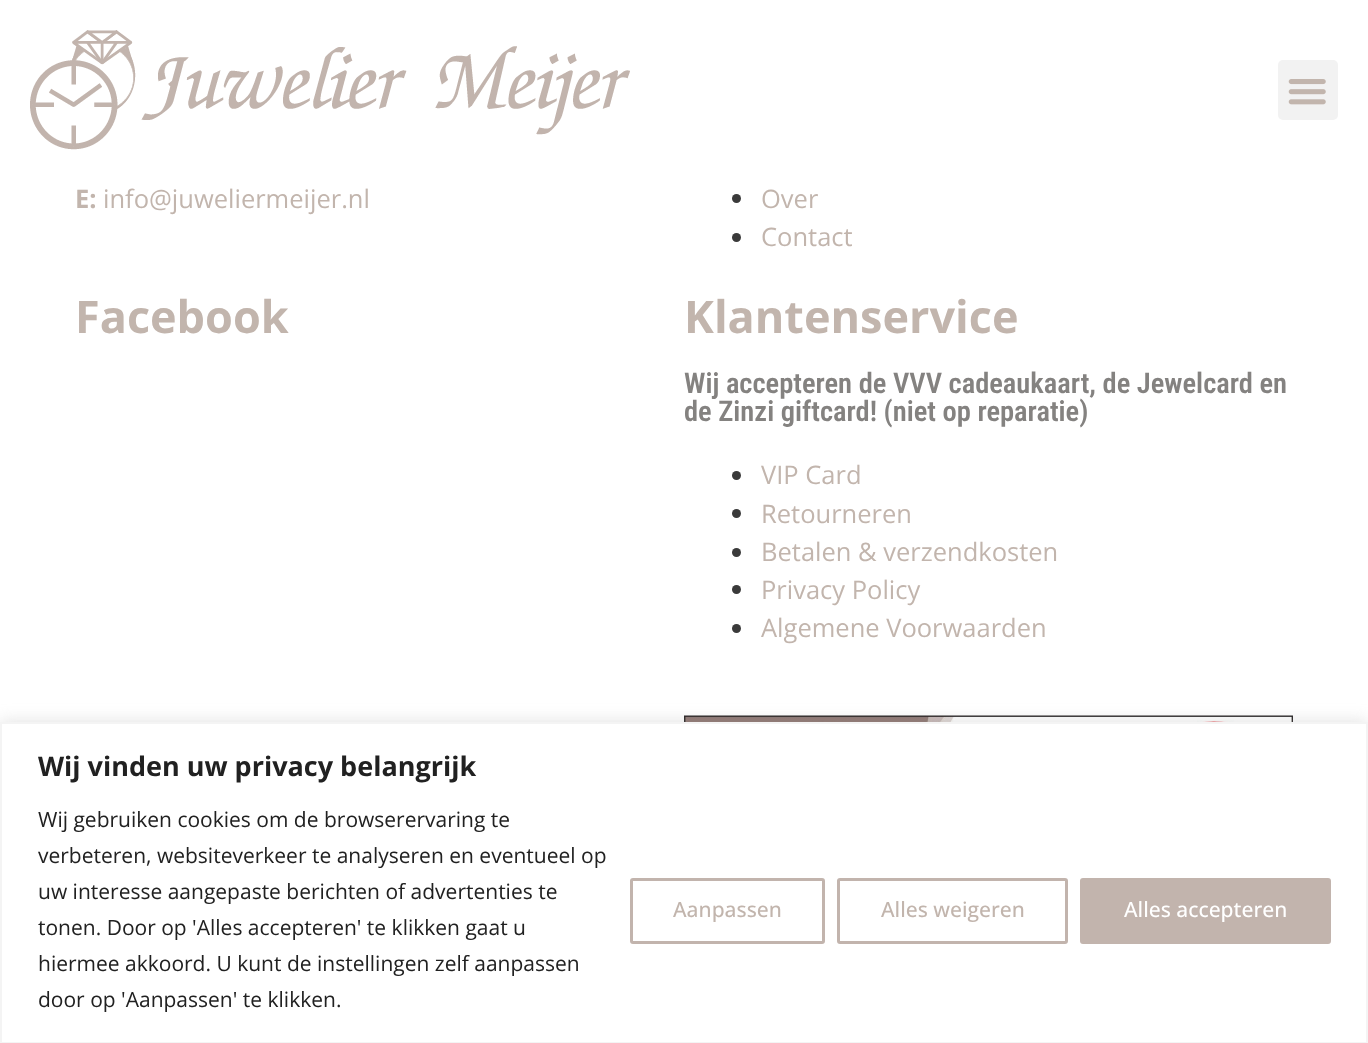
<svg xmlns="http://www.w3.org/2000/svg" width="1368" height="1043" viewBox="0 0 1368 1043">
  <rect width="100%" height="100%" fill="rgb(255,255,255)"/>
  <image x="30" y="30" width="600" height="120" href="pic1.png"/>
  <rect x="1278" y="60" width="60" height="60" rx="5" fill="rgb(242,242,242)"/>
  <image x="1288" y="79" width="38" height="26" href="pic2.png"/>
  <text x="75" y="208" font-family="Open Sans" font-size="25.5" font-weight="bold" fill="rgb(194,181,173)">E:</text>
  <text x="103" y="208" font-family="Open Sans" font-size="25.5" fill="rgb(194,181,173)">info@juweliermeijer.nl</text>
  <circle cx="736.5" cy="198.5" r="4.5" fill="rgb(58,58,58)"/>
  <text x="761" y="208" font-family="Open Sans" font-size="25.5" fill="rgb(194,181,173)">Over</text>
  <circle cx="736.5" cy="237.5" r="4.5" fill="rgb(58,58,58)"/>
  <text x="761" y="246" font-family="Open Sans" font-size="25.5" fill="rgb(194,181,173)">Contact</text>
  <g font-family="Open Sans" font-size="45" font-weight="bold" fill="rgb(194,181,173)">
    <text x="75" y="333">Facebook</text>
    <text x="684" y="333">Klantenservice</text>
  </g>
  <g font-family="Roboto Condensed" font-size="28.5" font-weight="600" fill="rgb(132,130,128)">
    <text>
      <tspan x="684" y="393">Wij accepteren de VVV cadeaukaart, de Jewelcard en</tspan>
      <tspan x="684" y="421">de Zinzi giftcard! (niet op reparatie)</tspan>
    </text>
  </g>
  <circle cx="736.5" cy="475.5" r="4.5" fill="rgb(58,58,58)"/>
  <text x="761" y="484" font-family="Open Sans" font-size="25.5" fill="rgb(194,181,173)">VIP Card</text>
  <circle cx="736.5" cy="513.5" r="4.5" fill="rgb(58,58,58)"/>
  <text x="761" y="523" font-family="Open Sans" font-size="25.5" fill="rgb(194,181,173)">Retourneren</text>
  <circle cx="736.5" cy="552.5" r="4.5" fill="rgb(58,58,58)"/>
  <text x="761" y="561" font-family="Open Sans" font-size="25.5" fill="rgb(194,181,173)">Betalen &amp; verzendkosten</text>
  <circle cx="736.5" cy="589.5" r="4.5" fill="rgb(58,58,58)"/>
  <text x="761" y="599" font-family="Open Sans" font-size="25.5" fill="rgb(194,181,173)">Privacy Policy</text>
  <circle cx="736.5" cy="628.5" r="4.5" fill="rgb(58,58,58)"/>
  <text x="761" y="637" font-family="Open Sans" font-size="25.5" fill="rgb(194,181,173)">Algemene Voorwaarden</text>
  <image x="684" y="715" width="609" height="7" href="pic3.png"/>
  <rect x="0" y="720" width="1368" height="323" fill="rgba(172,171,171,0.3)" filter="blur(7.5px)"/>
  <rect x="1" y="723" width="1366" height="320" fill="rgb(255,255,255)" stroke="rgb(244,244,244)" stroke-width="2"/>
  <text x="38" y="776" font-family="Open Sans" font-size="27" font-weight="bold" fill="rgb(33,33,33)">Wij vinden uw privacy belangrijk</text>
  <g font-family="Open Sans" font-size="21" fill="rgb(33,33,33)">
    <text>
      <tspan x="38" y="827">Wij gebruiken cookies om de browserervaring te</tspan>
      <tspan x="38" y="863">verbeteren, websiteverkeer te analyseren en eventueel op</tspan>
      <tspan x="38" y="899">uw interesse aangepaste berichten of advertenties te</tspan>
      <tspan x="38" y="935">tonen. Door op 'Alles accepteren' te klikken gaat u</tspan>
      <tspan x="38" y="971">hiermee akkoord. U kunt de instellingen zelf aanpassen</tspan>
      <tspan x="38" y="1007">door op 'Aanpassen' te klikken.</tspan>
    </text>
  </g>
  <rect x="631.5" y="879.5" width="192" height="63" rx="1.5" fill="none" stroke="rgb(194,180,173)" stroke-width="3"/>
  <text x="673" y="917" font-family="Open Sans" font-size="21" font-weight="500" fill="rgb(194,181,173)">Aanpassen</text>
  <rect x="838.5" y="879.5" width="228" height="63" rx="1.5" fill="none" stroke="rgb(194,180,173)" stroke-width="3"/>
  <text x="881" y="917" font-family="Open Sans" font-size="21" font-weight="500" fill="rgb(194,181,173)">Alles weigeren</text>
  <rect x="1081.5" y="879.5" width="248" height="63" rx="1.5" fill="rgb(194,180,173)" stroke="rgb(194,180,173)" stroke-width="3"/>
  <text x="1124" y="917" font-family="Open Sans" font-size="21" font-weight="500" fill="rgb(255,255,255)">Alles accepteren</text>
</svg>
